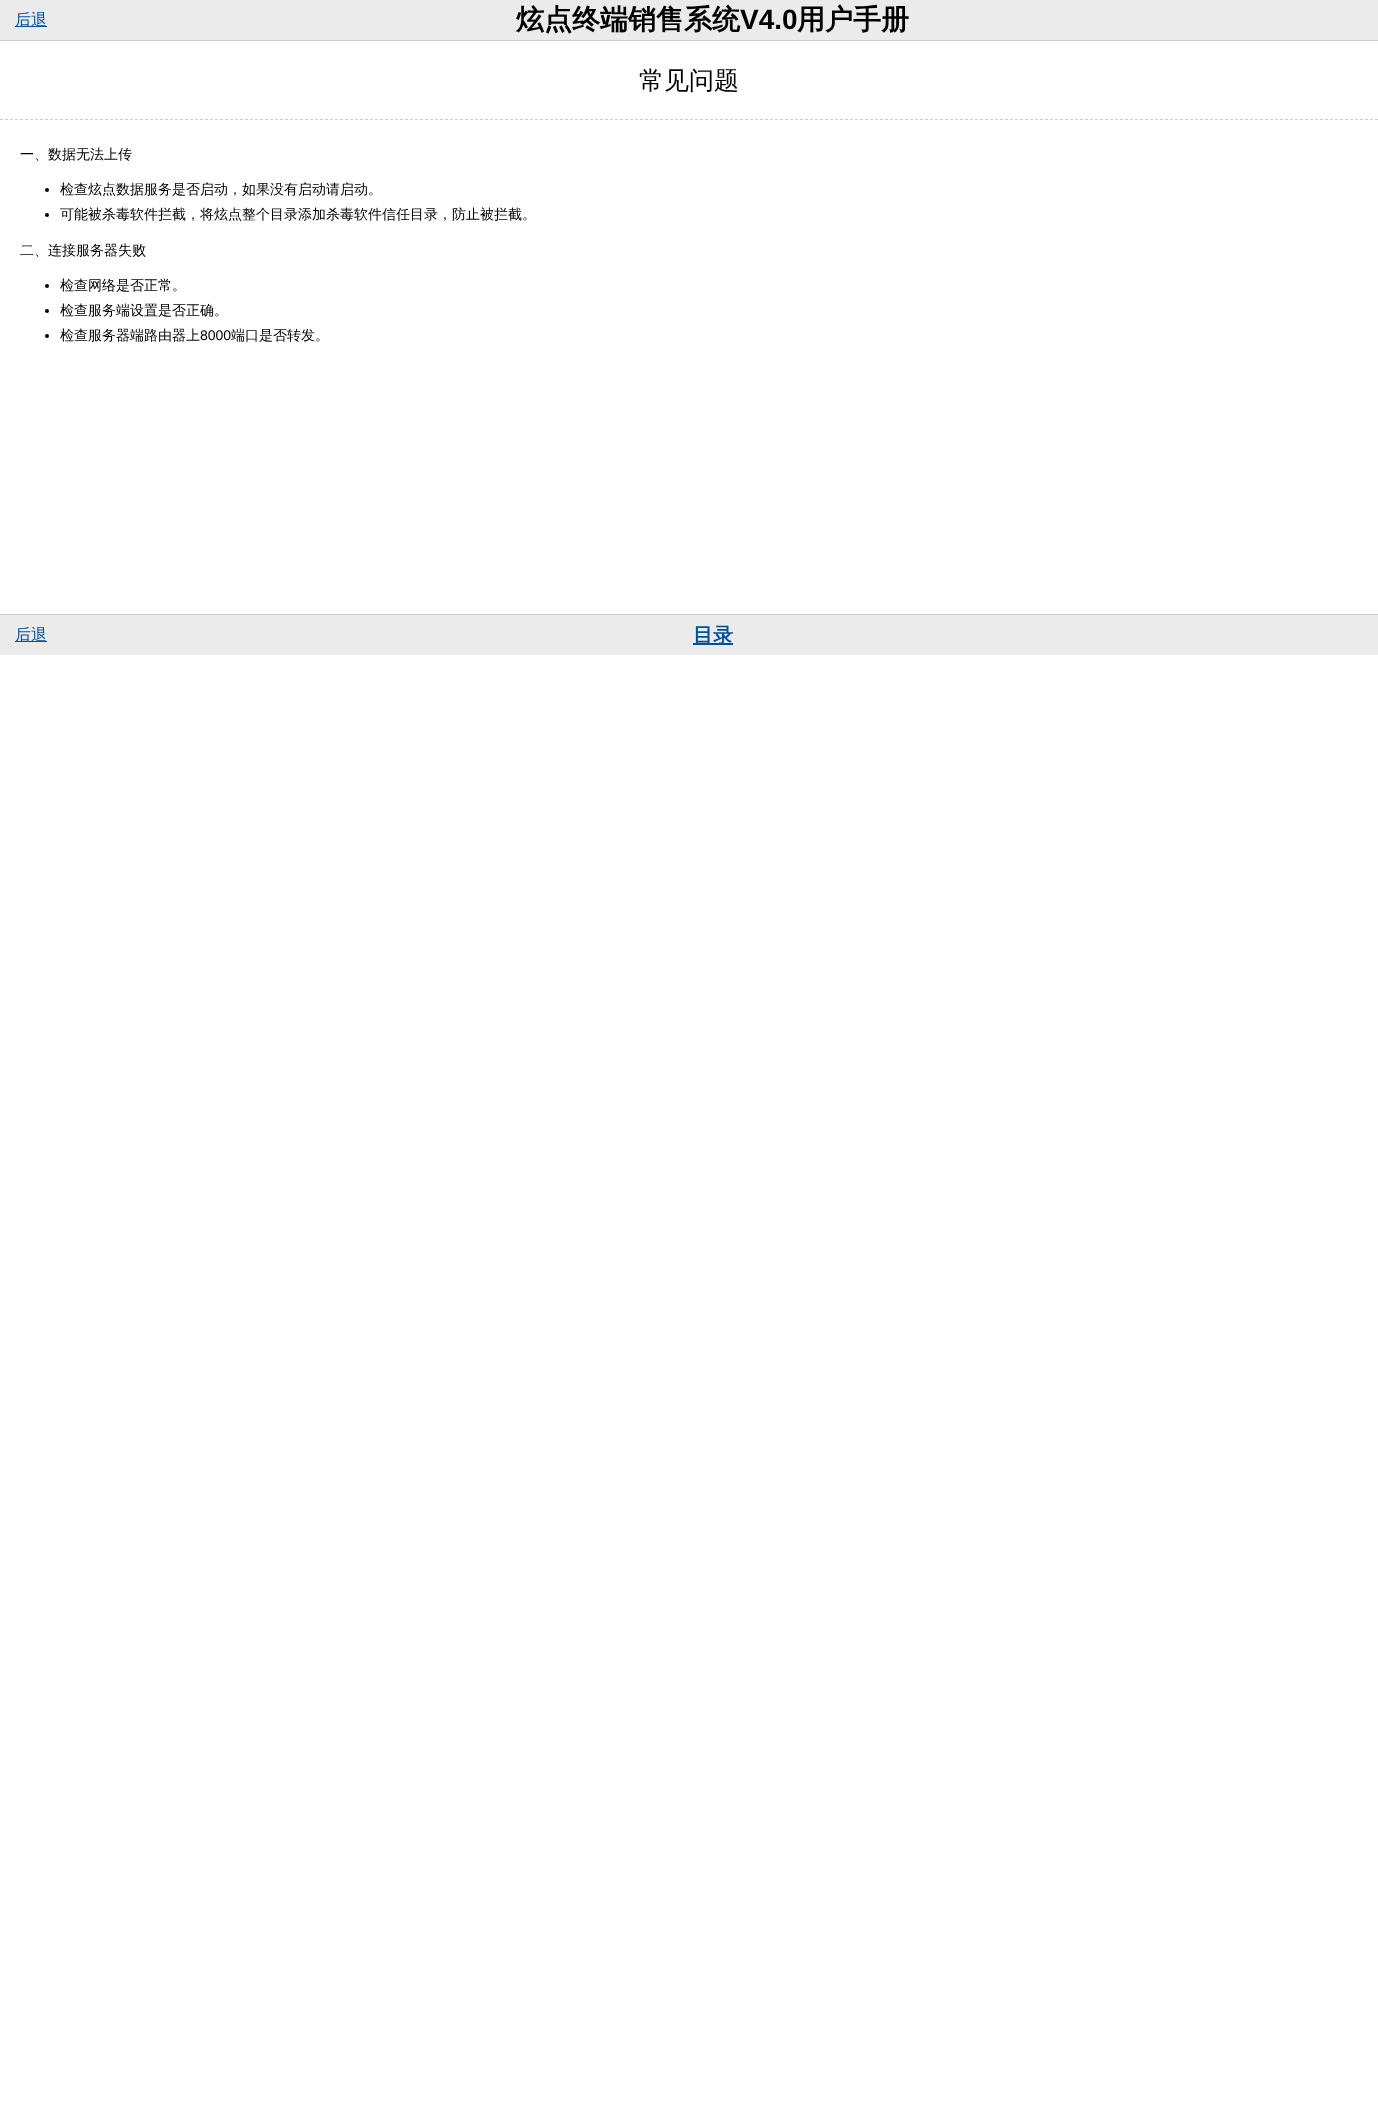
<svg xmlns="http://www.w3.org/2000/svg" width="1378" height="2105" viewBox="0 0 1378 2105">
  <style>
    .t1 { font: 500 16px WenQuanYi Zen Hei; fill: #005099; }
    .t2 { font: bold 28px WenQuanYi Zen Hei; fill: #000; }
    .t3 { font: bold 28px Liberation Sans; fill: #000; }
    .t4 { font: 500 25px WenQuanYi Zen Hei; fill: #000; }
    .t5 { font: 500 14px WenQuanYi Zen Hei; fill: #000; }
    .t6 { font: 14px Liberation Sans; fill: #000; }
    .t7 { font: bold 20px WenQuanYi Zen Hei; fill: #005099; }
  </style>
  <rect width="100%" height="100%" fill="#fff"/>
  <rect x="0" y="0" width="1378" height="40" fill="#ebebeb"/>
  <rect x="0" y="40" width="1378" height="1" fill="#ccc"/>
  <rect x="15" y="26" width="32" height="1" fill="#005099"/>
  <text x="15" y="25" class="t1">后退</text>
  <text x="516" y="29" class="t2">炫点终端销售系统</text>
  <text x="740" y="29" class="t3">V4.0</text>
  <text x="797" y="29" class="t2">用户手册</text>
  <path d="M0 119.5H1378" fill="none" stroke="#ccc" stroke-dasharray="3 2"/>
  <text x="639" y="89" class="t4">常见问题</text>
  <text x="20" y="159" class="t5">一、数据无法上传</text>
  <circle cx="47" cy="190" r="2" fill="#000"/>
  <text x="60" y="194" class="t5">检查炫点数据服务是否启动，如果没有启动请启动。</text>
  <circle cx="47" cy="215" r="2" fill="#000"/>
  <text x="60" y="219" class="t5">可能被杀毒软件拦截，将炫点整个目录添加杀毒软件信任目录，防止被拦截。</text>
  <text x="20" y="255" class="t5">二、连接服务器失败</text>
  <circle cx="47" cy="286" r="2" fill="#000"/>
  <text x="60" y="290" class="t5">检查网络是否正常。</text>
  <circle cx="47" cy="311" r="2" fill="#000"/>
  <text x="60" y="315" class="t5">检查服务端设置是否正确。</text>
  <circle cx="47" cy="336" r="2" fill="#000"/>
  <text x="60" y="340" class="t5">检查服务器端路由器上</text>
  <text x="200" y="340" class="t6">8000</text>
  <text x="231" y="340" class="t5">端口是否转发。</text>
  <rect x="0" y="615" width="1378" height="40" fill="#ebebeb"/>
  <rect x="0" y="614" width="1378" height="1" fill="#ccc"/>
  <rect x="15" y="641" width="32" height="1" fill="#005099"/>
  <text x="15" y="640" class="t1">后退</text>
  <rect x="693" y="643" width="40" height="2" fill="#005099"/>
  <text x="693" y="642" class="t7">目录</text>
</svg>
